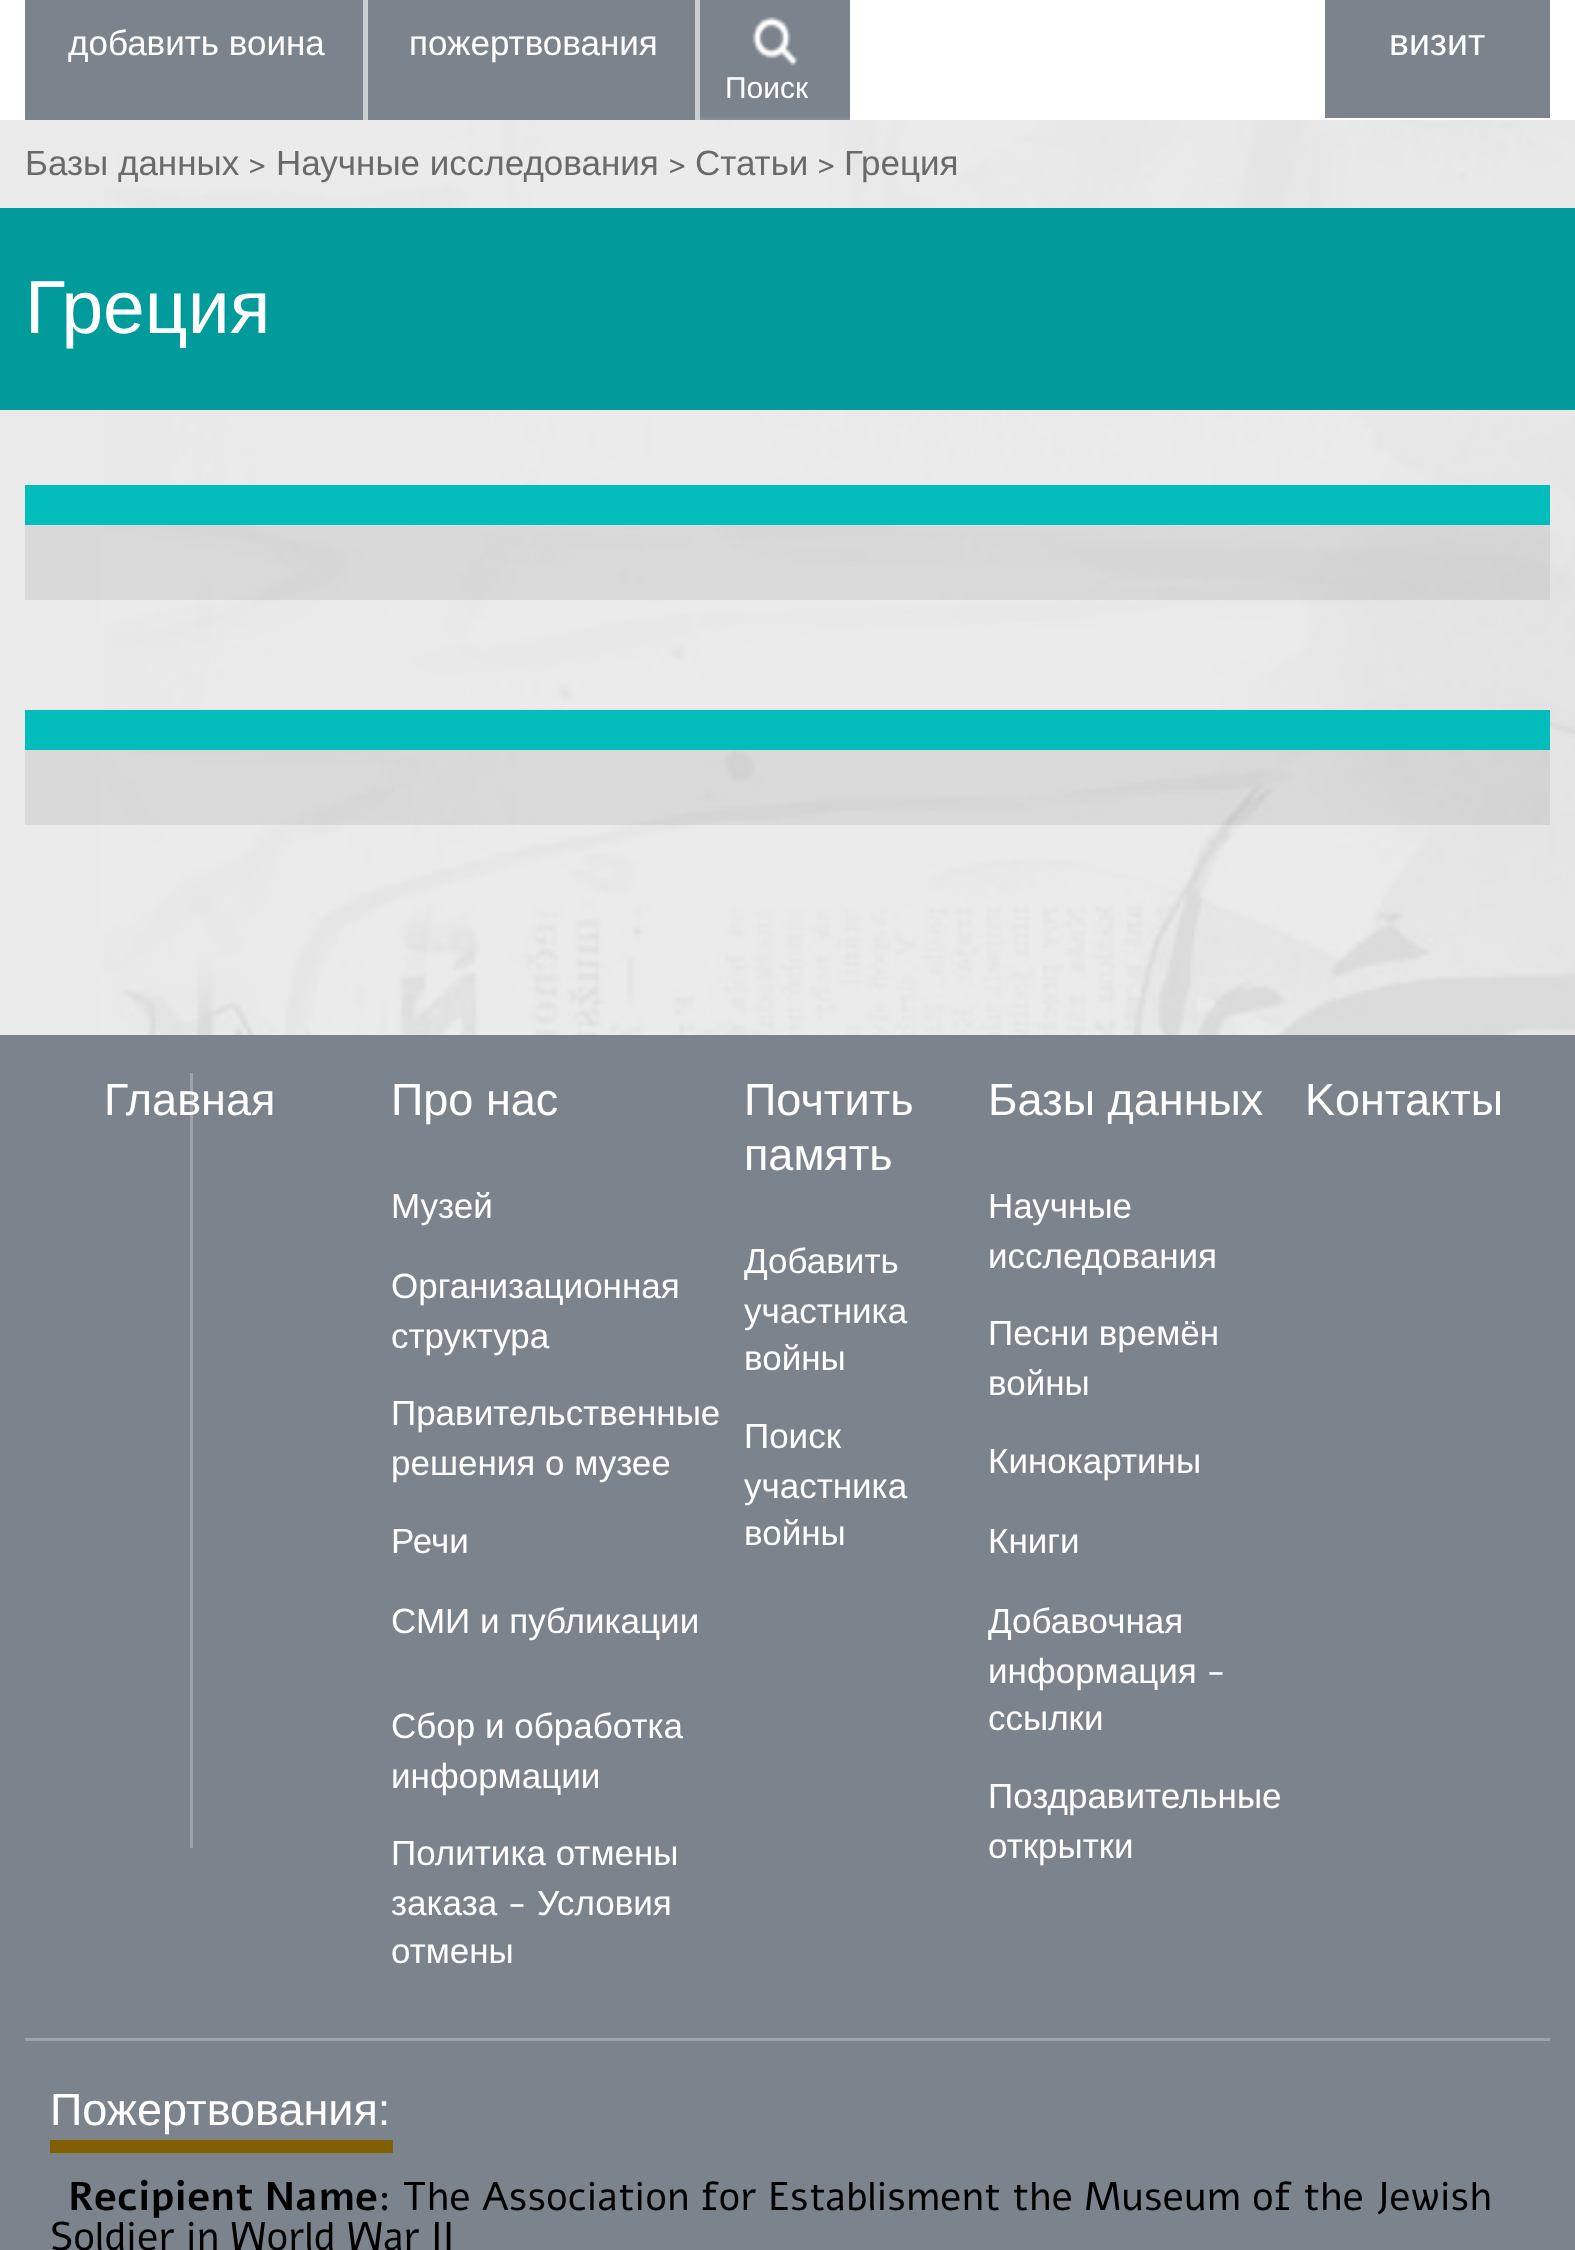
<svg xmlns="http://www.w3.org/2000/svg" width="1575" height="2250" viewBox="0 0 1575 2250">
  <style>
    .t1 { font: 35px Liberation Sans; fill: #fff; }
    .t2 { font: 30px Liberation Sans; fill: #fff; }
    .t3 { font: 37.5px Liberation Sans; fill: #fff; }
    .t4 { font: 35px Liberation Sans; fill: #6a6a6a; }
    .t5 { font: 35px Alef; fill: #6a6a6a; }
    .t6 { font: 75px Liberation Sans; fill: #fff; }
    .t7 { font: 45px Liberation Sans; fill: #fff; }
    .t8 { font: 35px Alef; fill: #fff; }
    .t9 { font: bold 40px Alef; fill: #000; }
    .t10 { font: 40px Alef; fill: #000; }
  </style>
  <rect width="100%" height="100%" fill="#fff"/>
  <image x="0" y="120" width="1575" height="915" href="images/1.png"/>
  <rect x="363" y="0" width="5" height="120" fill="#caced1"/>
  <rect x="25" y="0" width="338" height="120" fill="#7b848d"/>
  <text x="68" y="55" class="t1">добавить воина</text>
  <rect x="695" y="0" width="5" height="120" fill="#caced1"/>
  <rect x="368" y="0" width="327" height="120" fill="#7b848d"/>
  <text x="409" y="55" class="t1">пожертвования</text>
  <image x="700" y="0" width="150" height="120" href="images/2.png"/>
  <text x="725" y="98" class="t2">Поиск</text>
  <rect x="1325" y="0" width="225" height="118" fill="#7b848d"/>
  <text x="1389" y="55" class="t3">визит</text>
  <text x="25" y="175" class="t4">Базы данных</text>
  <text x="249" y="175" class="t5">&gt;</text>
  <text x="276" y="175" class="t4">Научные исследования</text>
  <text x="669" y="175" class="t5">&gt;</text>
  <text x="695" y="175" class="t4">Статьи</text>
  <text x="818" y="175" class="t5">&gt;</text>
  <text x="844" y="175" class="t4">Греция</text>
  <rect x="0" y="208" width="1575" height="202" fill="#019b9b"/>
  <text x="25" y="333" class="t6">Греция</text>
  <rect x="25" y="485" width="1525" height="40" fill="#03bdbd"/>
  <rect x="25" y="525" width="1525" height="75" fill="#00000012"/>
  <rect x="25" y="710" width="1525" height="40" fill="#03bdbd"/>
  <rect x="25" y="750" width="1525" height="75" fill="#00000012"/>
  <rect x="0" y="1035" width="1575" height="1215" fill="#7b848d"/>
  <rect x="190" y="1073" width="3" height="775" fill="#9da3a9"/>
  <text x="104" y="1115" class="t7">Главная</text>
  <text x="391" y="1115" class="t7">Про нас</text>
  <text x="391" y="1218" class="t1">Музей</text>
  <text x="391" y="1298" class="t1">Организационная</text>
  <text x="391" y="1348" class="t1">структура</text>
  <text x="391" y="1425" class="t1">Правительственные</text>
  <text x="391" y="1475" class="t1">решения о музее</text>
  <text x="391" y="1553" class="t1">Речи</text>
  <text x="391" y="1633" class="t1">СМИ и публикации</text>
  <text x="391" y="1738" class="t1">Сбор и обработка</text>
  <text x="391" y="1788" class="t1">информации</text>
  <text x="391" y="1865" class="t1">Политика отмены</text>
  <text x="391" y="1915" class="t1">заказа</text>
  <text x="507" y="1915" class="t8">-</text>
  <text x="537" y="1915" class="t1">Условия</text>
  <text x="391" y="1963" class="t1">отмены</text>
  <text x="744" y="1115" class="t7">Почтить</text>
  <text x="744" y="1170" class="t7">память</text>
  <text x="744" y="1273" class="t1">Добавить</text>
  <text x="744" y="1323" class="t1">участника</text>
  <text x="744" y="1370" class="t1">войны</text>
  <text x="744" y="1448" class="t1">Поиск</text>
  <text x="744" y="1498" class="t1">участника</text>
  <text x="744" y="1545" class="t1">войны</text>
  <text x="988" y="1115" class="t7">Базы данных</text>
  <text x="988" y="1218" class="t1">Научные</text>
  <text x="988" y="1268" class="t1">исследования</text>
  <text x="988" y="1345" class="t1">Песни времён</text>
  <text x="988" y="1395" class="t1">войны</text>
  <text x="988" y="1473" class="t1">Кинокартины</text>
  <text x="988" y="1553" class="t1">Книги</text>
  <text x="988" y="1633" class="t1">Добавочная</text>
  <text x="988" y="1683" class="t1">информация</text>
  <text x="1206" y="1683" class="t8">-</text>
  <text x="988" y="1730" class="t1">ссылки</text>
  <text x="988" y="1808" class="t1">Поздравительные</text>
  <text x="988" y="1858" class="t1">открытки</text>
  <text x="1305" y="1115" class="t7">Kонтакты</text>
  <rect x="25" y="2038" width="1525" height="3" fill="#9da3a9"/>
  <rect x="50" y="2140" width="343" height="13" fill="#826000"/>
  <text x="50" y="2125" class="t7">Пожертвования:</text>
  <text x="68" y="2210" class="t9">Recipient Name</text>
  <text x="378" y="2210" class="t10">: The Association for Establisment the Museum of the Jewish</text>
  <text x="50" y="2250" class="t10">Soldier in World War II</text>
</svg>
